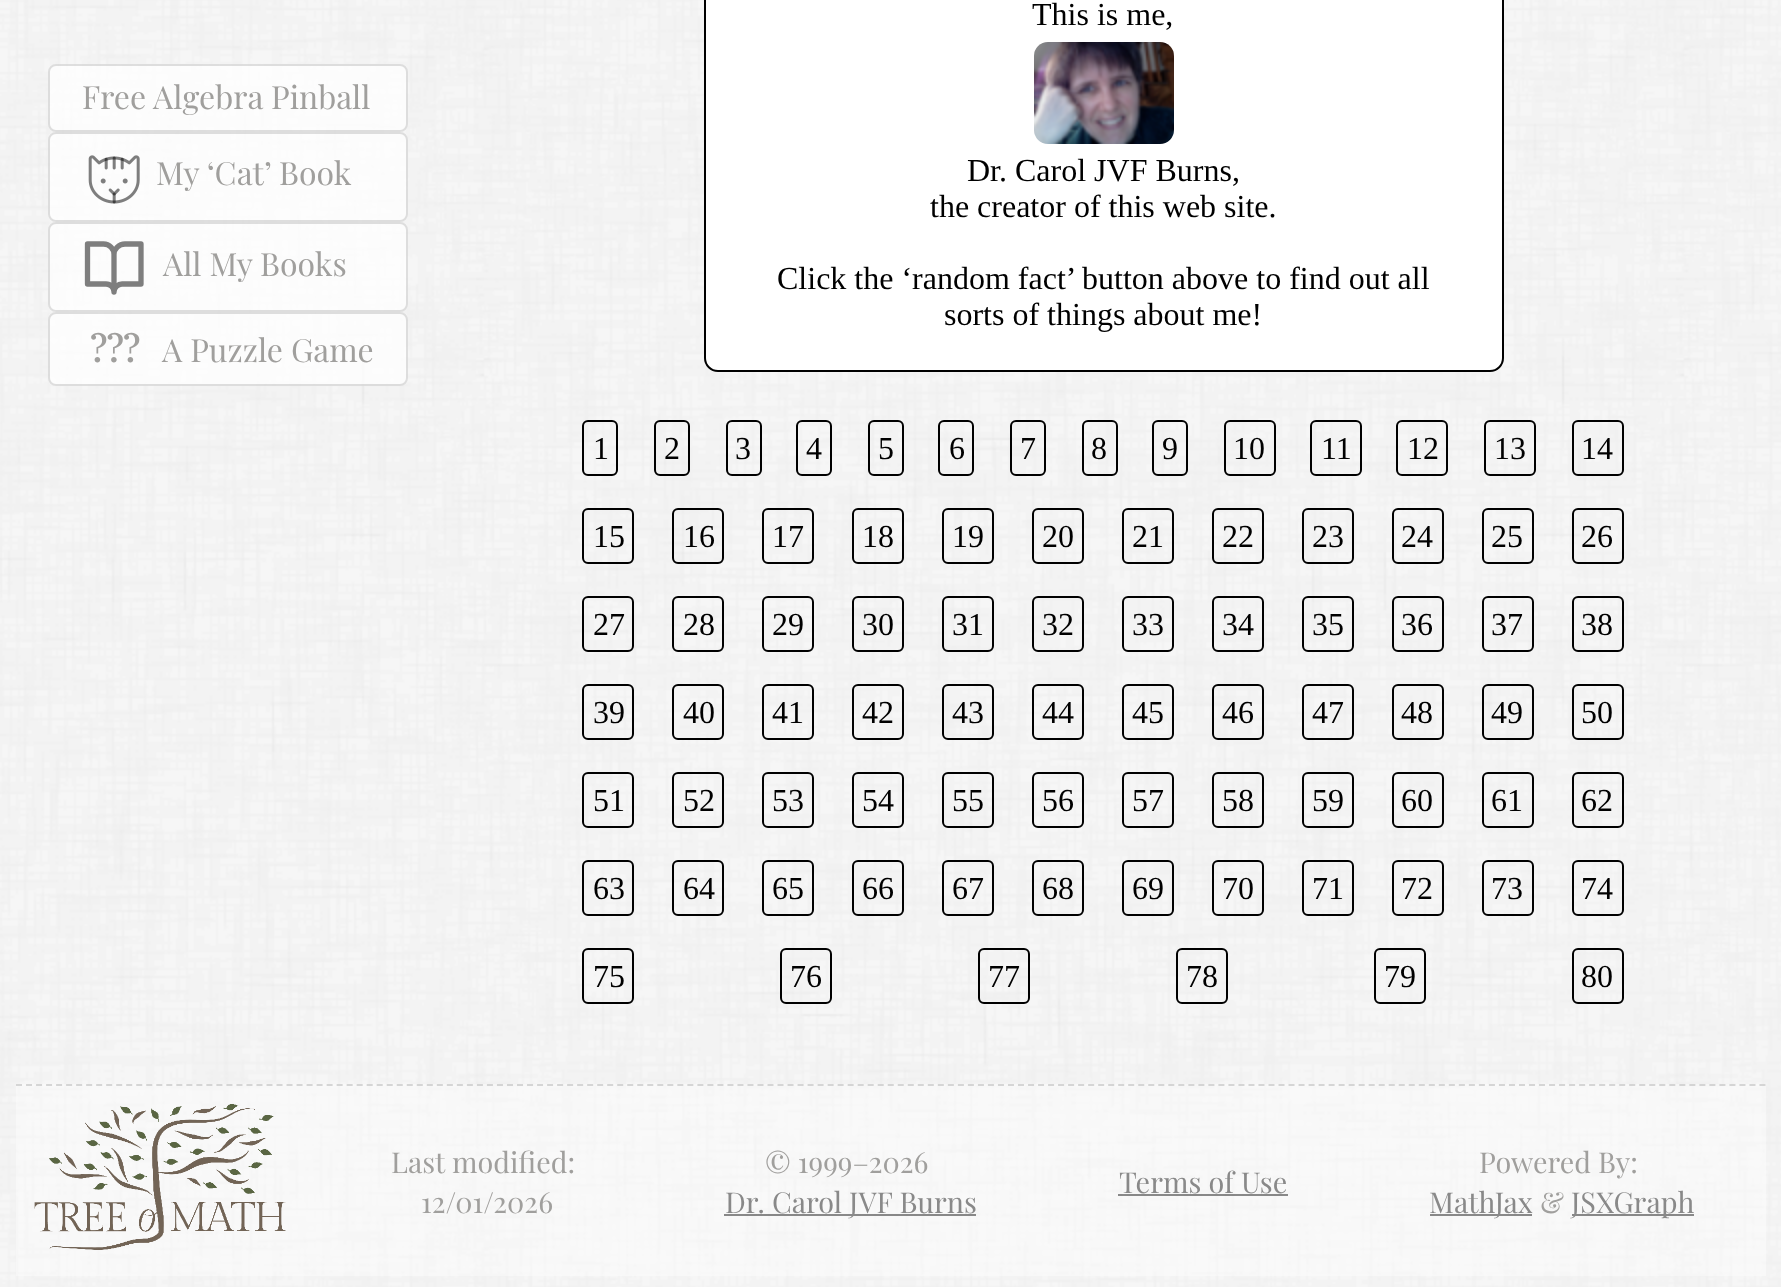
<svg xmlns="http://www.w3.org/2000/svg" width="1781" height="1287" viewBox="0 0 1781 1287">
  <style>
    .t1 { font: 32px Playfair Display; fill: #a09f9d; }
    .t2 { font: bold 36px Playfair Display; fill: #a09f9d; }
    .t3 { font: 32px Liberation Serif; fill: #000; }
    .t4 { font: 28.75px Playfair Display; fill: #a09f9d; }
    .t5 { font: 28.75px Playfair Display; fill: #898989; }
  </style>
  <rect width="100%" height="100%" fill="#fff"/>
  <image x="0" y="0" width="1781" height="1287" href="images/1.png"/>
  <rect x="48" y="64" width="360" height="68" rx="8" fill="#ffffffbf"/>
  <rect x="49" y="65" width="358" height="66" rx="7" fill="none" stroke="#0000001f" stroke-width="2"/>
  <text x="82" y="109" class="t1">Free Algebra Pinball</text>
  <rect x="48" y="132" width="360" height="90" rx="8" fill="#ffffffbf"/>
  <rect x="49" y="133" width="358" height="88" rx="7" fill="none" stroke="#0000001f" stroke-width="2"/>
  <image x="88" y="155" width="52" height="49" href="images/2.png"/>
  <text x="156" y="185" class="t1">My ‘Cat’ Book</text>
  <rect x="48" y="222" width="360" height="90" rx="8" fill="#ffffffbf"/>
  <rect x="49" y="223" width="358" height="88" rx="7" fill="none" stroke="#0000001f" stroke-width="2"/>
  <path d="M87.5 244H103.5C109.5 244 114 249 114 254.5V292C114 287.5 110.5 284 106 284H87.5ZM141 244H125C119 244 114 249 114 254.5V292C114 287.5 118 284 122 284H141Z" fill="none" stroke="#7e7e7e" stroke-width="5.3" stroke-linecap="round" stroke-linejoin="round"/>
  <text x="163" y="276" class="t1">All My Books</text>
  <rect x="48" y="312" width="360" height="74" rx="8" fill="#ffffffbf"/>
  <rect x="49" y="313" width="358" height="72" rx="7" fill="none" stroke="#0000001f" stroke-width="2"/>
  <text x="90" y="362" class="t2">???</text>
  <text x="162" y="362" class="t1">A Puzzle Game</text>
  <rect x="705" y="-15" width="798" height="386" rx="13" fill="#fff" stroke="#000" stroke-width="2"/>
  <text x="1032" y="25" class="t3">This is me,</text>
  <image x="1034" y="42" width="140" height="102" href="images/3.png"/>
  <text x="967" y="181" class="t3">Dr. Carol JVF Burns,</text>
  <text x="930" y="217" class="t3">the creator of this web site.</text>
  <text x="777" y="289" class="t3">Click the ‘random fact’ button above to find out all</text>
  <text x="944" y="325" class="t3">sorts of things about me!</text>
  <rect x="583" y="421" width="34" height="54" rx="5" fill="none" stroke="#000" stroke-width="2"/>
  <text x="593" y="459" class="t3">1</text>
  <rect x="655" y="421" width="34" height="54" rx="5" fill="none" stroke="#000" stroke-width="2"/>
  <text x="664" y="459" class="t3">2</text>
  <rect x="727" y="421" width="34" height="54" rx="5" fill="none" stroke="#000" stroke-width="2"/>
  <text x="735" y="459" class="t3">3</text>
  <rect x="797" y="421" width="34" height="54" rx="5" fill="none" stroke="#000" stroke-width="2"/>
  <text x="806" y="459" class="t3">4</text>
  <rect x="869" y="421" width="34" height="54" rx="5" fill="none" stroke="#000" stroke-width="2"/>
  <text x="878" y="459" class="t3">5</text>
  <rect x="939" y="421" width="34" height="54" rx="5" fill="none" stroke="#000" stroke-width="2"/>
  <text x="949" y="459" class="t3">6</text>
  <rect x="1011" y="421" width="34" height="54" rx="5" fill="none" stroke="#000" stroke-width="2"/>
  <text x="1020" y="459" class="t3">7</text>
  <rect x="1083" y="421" width="34" height="54" rx="5" fill="none" stroke="#000" stroke-width="2"/>
  <text x="1091" y="459" class="t3">8</text>
  <rect x="1153" y="421" width="34" height="54" rx="5" fill="none" stroke="#000" stroke-width="2"/>
  <text x="1162" y="459" class="t3">9</text>
  <rect x="1225" y="421" width="50" height="54" rx="5" fill="none" stroke="#000" stroke-width="2"/>
  <text x="1233" y="459" class="t3">10</text>
  <rect x="1311" y="421" width="50" height="54" rx="5" fill="none" stroke="#000" stroke-width="2"/>
  <text x="1321" y="459" class="t3">11</text>
  <rect x="1397" y="421" width="50" height="54" rx="5" fill="none" stroke="#000" stroke-width="2"/>
  <text x="1407" y="459" class="t3">12</text>
  <rect x="1485" y="421" width="50" height="54" rx="5" fill="none" stroke="#000" stroke-width="2"/>
  <text x="1494" y="459" class="t3">13</text>
  <rect x="1573" y="421" width="50" height="54" rx="5" fill="none" stroke="#000" stroke-width="2"/>
  <text x="1581" y="459" class="t3">14</text>
  <rect x="583" y="509" width="50" height="54" rx="5" fill="none" stroke="#000" stroke-width="2"/>
  <text x="593" y="547" class="t3">15</text>
  <rect x="673" y="509" width="50" height="54" rx="5" fill="none" stroke="#000" stroke-width="2"/>
  <text x="683" y="547" class="t3">16</text>
  <rect x="763" y="509" width="50" height="54" rx="5" fill="none" stroke="#000" stroke-width="2"/>
  <text x="772" y="547" class="t3">17</text>
  <rect x="853" y="509" width="50" height="54" rx="5" fill="none" stroke="#000" stroke-width="2"/>
  <text x="862" y="547" class="t3">18</text>
  <rect x="943" y="509" width="50" height="54" rx="5" fill="none" stroke="#000" stroke-width="2"/>
  <text x="952" y="547" class="t3">19</text>
  <rect x="1033" y="509" width="50" height="54" rx="5" fill="none" stroke="#000" stroke-width="2"/>
  <text x="1042" y="547" class="t3">20</text>
  <rect x="1123" y="509" width="50" height="54" rx="5" fill="none" stroke="#000" stroke-width="2"/>
  <text x="1132" y="547" class="t3">21</text>
  <rect x="1213" y="509" width="50" height="54" rx="5" fill="none" stroke="#000" stroke-width="2"/>
  <text x="1222" y="547" class="t3">22</text>
  <rect x="1303" y="509" width="50" height="54" rx="5" fill="none" stroke="#000" stroke-width="2"/>
  <text x="1312" y="547" class="t3">23</text>
  <rect x="1393" y="509" width="50" height="54" rx="5" fill="none" stroke="#000" stroke-width="2"/>
  <text x="1401" y="547" class="t3">24</text>
  <rect x="1483" y="509" width="50" height="54" rx="5" fill="none" stroke="#000" stroke-width="2"/>
  <text x="1491" y="547" class="t3">25</text>
  <rect x="1573" y="509" width="50" height="54" rx="5" fill="none" stroke="#000" stroke-width="2"/>
  <text x="1581" y="547" class="t3">26</text>
  <rect x="583" y="597" width="50" height="54" rx="5" fill="none" stroke="#000" stroke-width="2"/>
  <text x="593" y="635" class="t3">27</text>
  <rect x="673" y="597" width="50" height="54" rx="5" fill="none" stroke="#000" stroke-width="2"/>
  <text x="683" y="635" class="t3">28</text>
  <rect x="763" y="597" width="50" height="54" rx="5" fill="none" stroke="#000" stroke-width="2"/>
  <text x="772" y="635" class="t3">29</text>
  <rect x="853" y="597" width="50" height="54" rx="5" fill="none" stroke="#000" stroke-width="2"/>
  <text x="862" y="635" class="t3">30</text>
  <rect x="943" y="597" width="50" height="54" rx="5" fill="none" stroke="#000" stroke-width="2"/>
  <text x="952" y="635" class="t3">31</text>
  <rect x="1033" y="597" width="50" height="54" rx="5" fill="none" stroke="#000" stroke-width="2"/>
  <text x="1042" y="635" class="t3">32</text>
  <rect x="1123" y="597" width="50" height="54" rx="5" fill="none" stroke="#000" stroke-width="2"/>
  <text x="1132" y="635" class="t3">33</text>
  <rect x="1213" y="597" width="50" height="54" rx="5" fill="none" stroke="#000" stroke-width="2"/>
  <text x="1222" y="635" class="t3">34</text>
  <rect x="1303" y="597" width="50" height="54" rx="5" fill="none" stroke="#000" stroke-width="2"/>
  <text x="1312" y="635" class="t3">35</text>
  <rect x="1393" y="597" width="50" height="54" rx="5" fill="none" stroke="#000" stroke-width="2"/>
  <text x="1401" y="635" class="t3">36</text>
  <rect x="1483" y="597" width="50" height="54" rx="5" fill="none" stroke="#000" stroke-width="2"/>
  <text x="1491" y="635" class="t3">37</text>
  <rect x="1573" y="597" width="50" height="54" rx="5" fill="none" stroke="#000" stroke-width="2"/>
  <text x="1581" y="635" class="t3">38</text>
  <rect x="583" y="685" width="50" height="54" rx="5" fill="none" stroke="#000" stroke-width="2"/>
  <text x="593" y="723" class="t3">39</text>
  <rect x="673" y="685" width="50" height="54" rx="5" fill="none" stroke="#000" stroke-width="2"/>
  <text x="683" y="723" class="t3">40</text>
  <rect x="763" y="685" width="50" height="54" rx="5" fill="none" stroke="#000" stroke-width="2"/>
  <text x="772" y="723" class="t3">41</text>
  <rect x="853" y="685" width="50" height="54" rx="5" fill="none" stroke="#000" stroke-width="2"/>
  <text x="862" y="723" class="t3">42</text>
  <rect x="943" y="685" width="50" height="54" rx="5" fill="none" stroke="#000" stroke-width="2"/>
  <text x="952" y="723" class="t3">43</text>
  <rect x="1033" y="685" width="50" height="54" rx="5" fill="none" stroke="#000" stroke-width="2"/>
  <text x="1042" y="723" class="t3">44</text>
  <rect x="1123" y="685" width="50" height="54" rx="5" fill="none" stroke="#000" stroke-width="2"/>
  <text x="1132" y="723" class="t3">45</text>
  <rect x="1213" y="685" width="50" height="54" rx="5" fill="none" stroke="#000" stroke-width="2"/>
  <text x="1222" y="723" class="t3">46</text>
  <rect x="1303" y="685" width="50" height="54" rx="5" fill="none" stroke="#000" stroke-width="2"/>
  <text x="1312" y="723" class="t3">47</text>
  <rect x="1393" y="685" width="50" height="54" rx="5" fill="none" stroke="#000" stroke-width="2"/>
  <text x="1401" y="723" class="t3">48</text>
  <rect x="1483" y="685" width="50" height="54" rx="5" fill="none" stroke="#000" stroke-width="2"/>
  <text x="1491" y="723" class="t3">49</text>
  <rect x="1573" y="685" width="50" height="54" rx="5" fill="none" stroke="#000" stroke-width="2"/>
  <text x="1581" y="723" class="t3">50</text>
  <rect x="583" y="773" width="50" height="54" rx="5" fill="none" stroke="#000" stroke-width="2"/>
  <text x="593" y="811" class="t3">51</text>
  <rect x="673" y="773" width="50" height="54" rx="5" fill="none" stroke="#000" stroke-width="2"/>
  <text x="683" y="811" class="t3">52</text>
  <rect x="763" y="773" width="50" height="54" rx="5" fill="none" stroke="#000" stroke-width="2"/>
  <text x="772" y="811" class="t3">53</text>
  <rect x="853" y="773" width="50" height="54" rx="5" fill="none" stroke="#000" stroke-width="2"/>
  <text x="862" y="811" class="t3">54</text>
  <rect x="943" y="773" width="50" height="54" rx="5" fill="none" stroke="#000" stroke-width="2"/>
  <text x="952" y="811" class="t3">55</text>
  <rect x="1033" y="773" width="50" height="54" rx="5" fill="none" stroke="#000" stroke-width="2"/>
  <text x="1042" y="811" class="t3">56</text>
  <rect x="1123" y="773" width="50" height="54" rx="5" fill="none" stroke="#000" stroke-width="2"/>
  <text x="1132" y="811" class="t3">57</text>
  <rect x="1213" y="773" width="50" height="54" rx="5" fill="none" stroke="#000" stroke-width="2"/>
  <text x="1222" y="811" class="t3">58</text>
  <rect x="1303" y="773" width="50" height="54" rx="5" fill="none" stroke="#000" stroke-width="2"/>
  <text x="1312" y="811" class="t3">59</text>
  <rect x="1393" y="773" width="50" height="54" rx="5" fill="none" stroke="#000" stroke-width="2"/>
  <text x="1401" y="811" class="t3">60</text>
  <rect x="1483" y="773" width="50" height="54" rx="5" fill="none" stroke="#000" stroke-width="2"/>
  <text x="1491" y="811" class="t3">61</text>
  <rect x="1573" y="773" width="50" height="54" rx="5" fill="none" stroke="#000" stroke-width="2"/>
  <text x="1581" y="811" class="t3">62</text>
  <rect x="583" y="861" width="50" height="54" rx="5" fill="none" stroke="#000" stroke-width="2"/>
  <text x="593" y="899" class="t3">63</text>
  <rect x="673" y="861" width="50" height="54" rx="5" fill="none" stroke="#000" stroke-width="2"/>
  <text x="683" y="899" class="t3">64</text>
  <rect x="763" y="861" width="50" height="54" rx="5" fill="none" stroke="#000" stroke-width="2"/>
  <text x="772" y="899" class="t3">65</text>
  <rect x="853" y="861" width="50" height="54" rx="5" fill="none" stroke="#000" stroke-width="2"/>
  <text x="862" y="899" class="t3">66</text>
  <rect x="943" y="861" width="50" height="54" rx="5" fill="none" stroke="#000" stroke-width="2"/>
  <text x="952" y="899" class="t3">67</text>
  <rect x="1033" y="861" width="50" height="54" rx="5" fill="none" stroke="#000" stroke-width="2"/>
  <text x="1042" y="899" class="t3">68</text>
  <rect x="1123" y="861" width="50" height="54" rx="5" fill="none" stroke="#000" stroke-width="2"/>
  <text x="1132" y="899" class="t3">69</text>
  <rect x="1213" y="861" width="50" height="54" rx="5" fill="none" stroke="#000" stroke-width="2"/>
  <text x="1222" y="899" class="t3">70</text>
  <rect x="1303" y="861" width="50" height="54" rx="5" fill="none" stroke="#000" stroke-width="2"/>
  <text x="1312" y="899" class="t3">71</text>
  <rect x="1393" y="861" width="50" height="54" rx="5" fill="none" stroke="#000" stroke-width="2"/>
  <text x="1401" y="899" class="t3">72</text>
  <rect x="1483" y="861" width="50" height="54" rx="5" fill="none" stroke="#000" stroke-width="2"/>
  <text x="1491" y="899" class="t3">73</text>
  <rect x="1573" y="861" width="50" height="54" rx="5" fill="none" stroke="#000" stroke-width="2"/>
  <text x="1581" y="899" class="t3">74</text>
  <rect x="583" y="949" width="50" height="54" rx="5" fill="none" stroke="#000" stroke-width="2"/>
  <text x="593" y="987" class="t3">75</text>
  <rect x="781" y="949" width="50" height="54" rx="5" fill="none" stroke="#000" stroke-width="2"/>
  <text x="790" y="987" class="t3">76</text>
  <rect x="979" y="949" width="50" height="54" rx="5" fill="none" stroke="#000" stroke-width="2"/>
  <text x="988" y="987" class="t3">77</text>
  <rect x="1177" y="949" width="50" height="54" rx="5" fill="none" stroke="#000" stroke-width="2"/>
  <text x="1186" y="987" class="t3">78</text>
  <rect x="1375" y="949" width="50" height="54" rx="5" fill="none" stroke="#000" stroke-width="2"/>
  <text x="1384" y="987" class="t3">79</text>
  <rect x="1573" y="949" width="50" height="54" rx="5" fill="none" stroke="#000" stroke-width="2"/>
  <text x="1581" y="987" class="t3">80</text>
  <rect x="16" y="1084" width="1750" height="192" fill="#ffffff66"/>
  <path d="M16 1085H1766" fill="none" stroke="#cccccccc" stroke-width="2" stroke-dasharray="6 4.02"/>
  <image x="34" y="1104" width="252" height="146" href="images/4.png"/>
  <text x="391" y="1173" class="t4">Last modified:</text>
  <text x="421" y="1213" class="t4">12/01/2026</text>
  <text x="765" y="1173" class="t4">© 1999–2026</text>
  <rect x="724" y="1214" width="252" height="2" fill="#00000073"/>
  <text x="725" y="1213" class="t5">Dr. Carol JVF Burns</text>
  <text x="1119" y="1193" class="t5">Terms of Use</text>
  <rect x="1118" y="1194" width="170" height="2" fill="#00000073"/>
  <text x="1479" y="1173" class="t4">Powered By:</text>
  <rect x="1430" y="1214" width="102" height="2" fill="#00000073"/>
  <text x="1429" y="1213" class="t5">MathJax</text>
  <text x="1540" y="1213" class="t4">&amp;</text>
  <rect x="1572" y="1214" width="122" height="2" fill="#00000073"/>
  <text x="1571" y="1213" class="t5">JSXGraph</text>
</svg>
